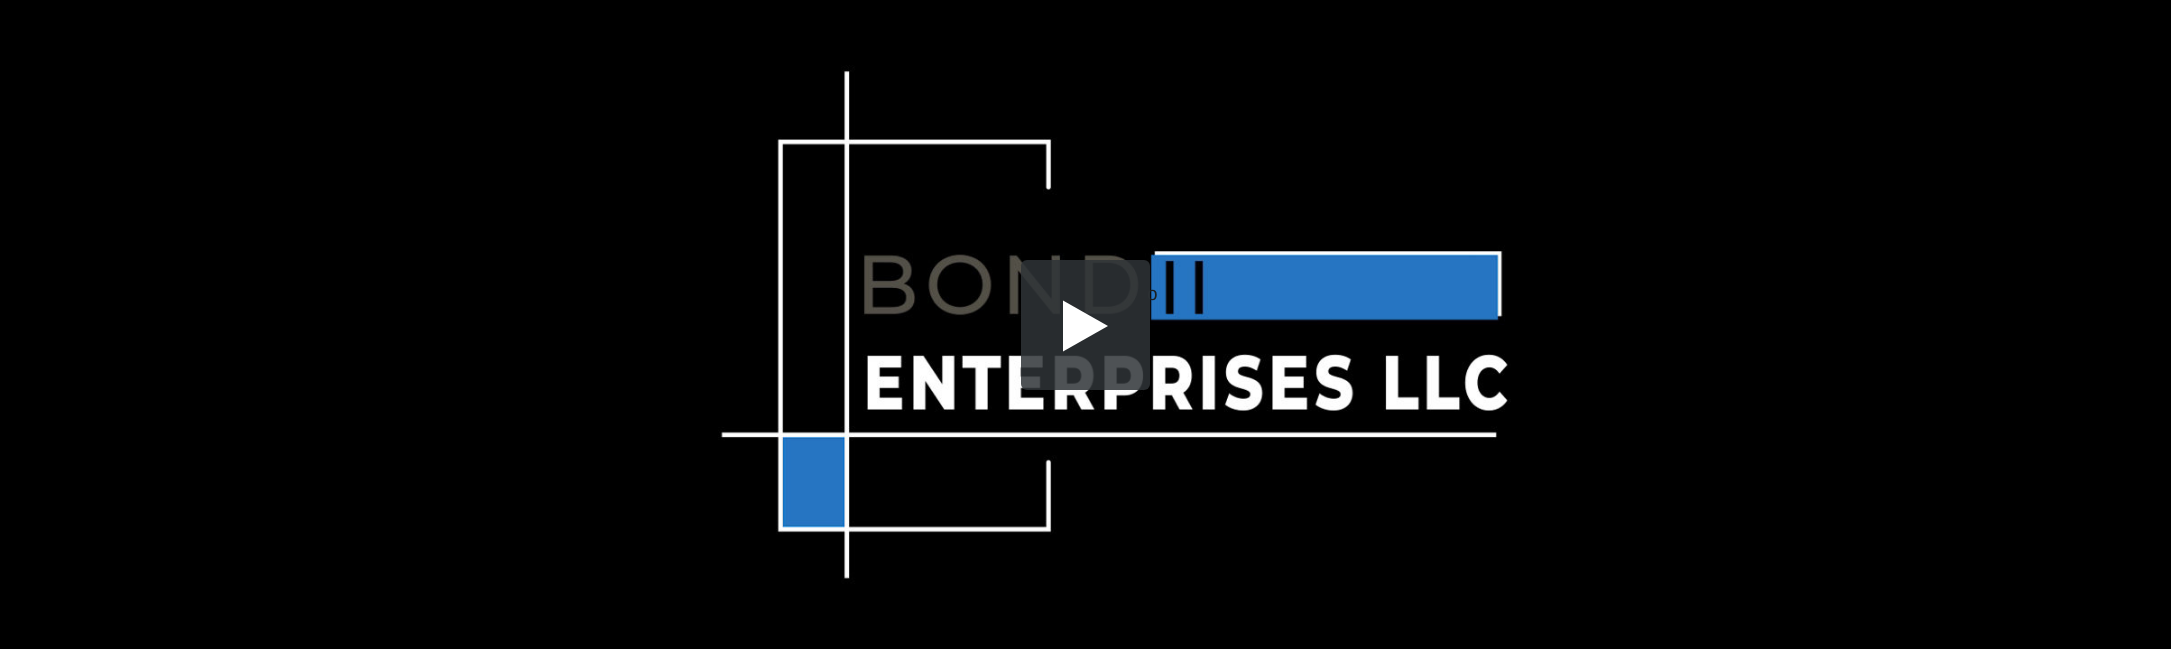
<svg xmlns="http://www.w3.org/2000/svg" width="2171" height="649" viewBox="0 0 2171 649">
  <style>
    .t1 { font: 19px Liberation Sans; fill: #1b1e1e; }
  </style>
  <defs>
    <clipPath id="clip1"><rect x="1063" y="300" width="46" height="53"/></clipPath>
  </defs>
  <rect width="100%" height="100%" fill="#000"/>
  <image x="718" y="65" width="793" height="519" href="images/1.png"/>
  <text x="1147" y="300" class="t1">o</text>
  <rect x="1021" y="260" width="129" height="130" rx="6" fill="#2f3437d9"/>
  <g clip-path="url(#clip1)">
    <path d="M1062 300V352L1108 326Z" fill="#fff"/>
  </g>
</svg>
